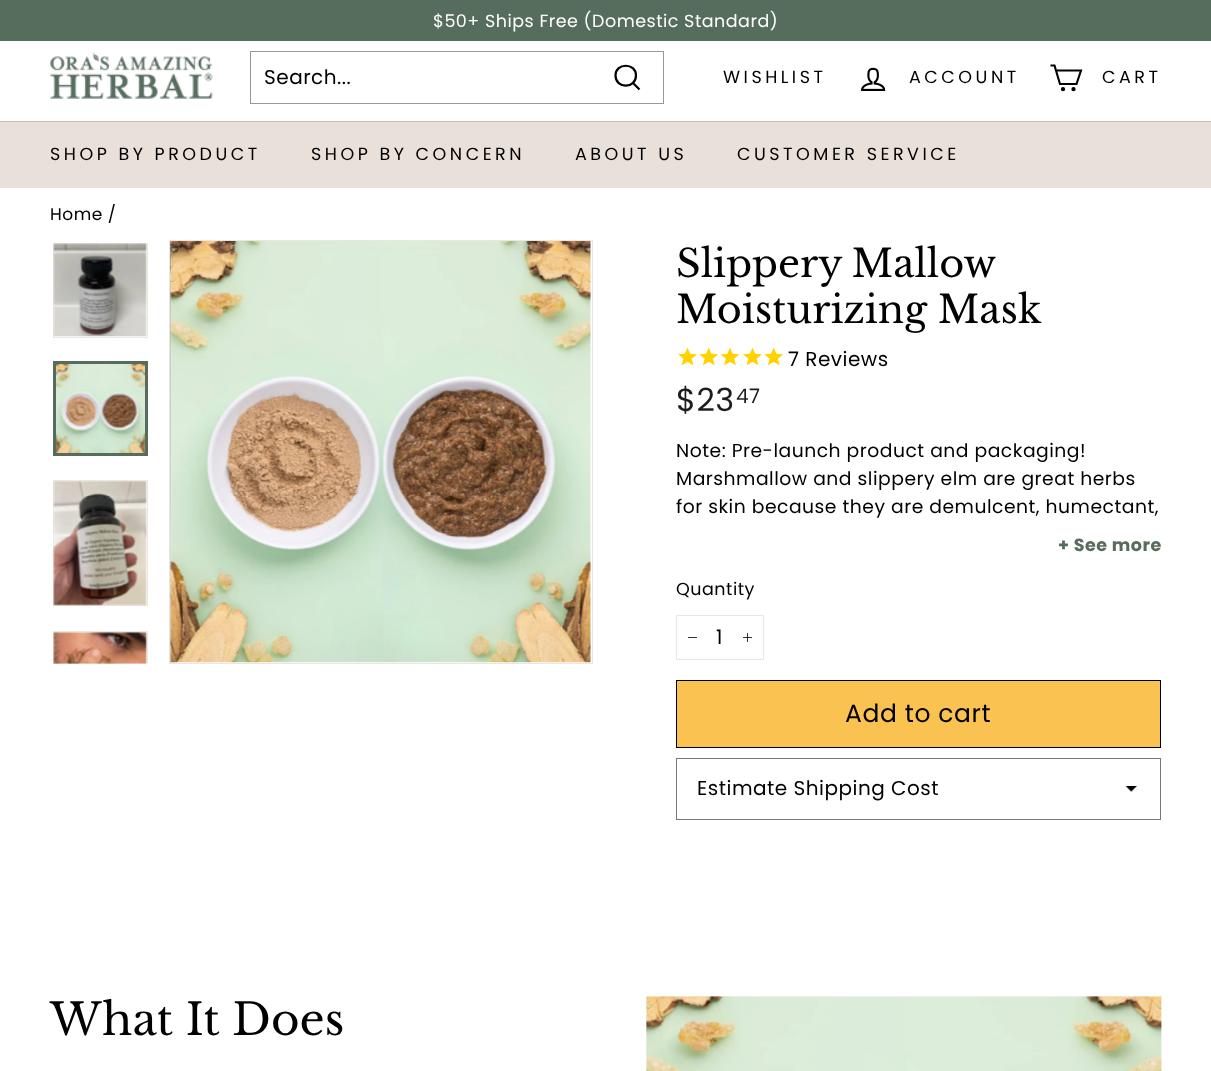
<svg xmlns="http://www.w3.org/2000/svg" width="1211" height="1071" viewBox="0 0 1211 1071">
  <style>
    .t1 { font: 17.5px Poppins; letter-spacing: 0.5px; fill: #fff; }
    .t2 { font: 20px Poppins; letter-spacing: 0.5px; fill: #000; }
    .t3 { font: 17.5px Poppins; letter-spacing: 3.5px; fill: #000; }
    .t4 { font: 17px Poppins; letter-spacing: 0.5px; fill: #000; }
    .t5 { font: 38.25px Libre Baskerville; fill: #000; }
    .t6 { font: 32px Poppins; letter-spacing: 0.5px; fill: #1c1d1d; }
    .t7 { font: 20px Poppins; letter-spacing: 0.5px; fill: #1c1d1d; }
    .t8 { font: 18.75px Poppins; letter-spacing: 0.5px; fill: #000; }
    .t9 { font: bold 17.5px Poppins; letter-spacing: 0.5px; fill: #586c5d; }
    .t10 { font: 17.5px Poppins; letter-spacing: 0.5px; fill: #000; }
    .t11 { font: 25px Poppins; letter-spacing: 0.6px; fill: #000; }
    .t12 { font: 43.75px Libre Baskerville; fill: #000; }
  </style>
  <defs>
    <clipPath id="clip1"><rect x="53" y="631" width="95" height="33"/></clipPath>
  </defs>
  <rect width="100%" height="100%" fill="#fff"/>
  <rect x="0" y="0" width="1211" height="41" fill="#566d5d"/>
  <text x="433" y="27" class="t1">$50+ Ships Free (Domestic Standard)</text>
  <image x="50" y="52" width="163" height="47" href="images/1.png"/>
  <rect x="250.5" y="51.5" width="413" height="52" fill="none" stroke="#989898"/>
  <text x="264" y="84" class="t2">Search...</text>
  <path d="M636 75.5C636 89 615.5 89 615.5 75.5C615.5 62.5 636 62.5 636 75.5ZM639.5 89.5L633 83" fill="none" stroke="#000" stroke-width="2.2"/>
  <text x="723" y="83" class="t3">WISHLIST</text>
  <image x="861" y="67" width="25" height="24" href="images/2.png"/>
  <text x="909" y="83" class="t3">ACCOUNT</text>
  <path d="M1056 70.5H1081L1076.5 84H1060L1054.5 65.5H1050.5" fill="none" stroke="#000" stroke-width="2.1"/>
  <circle cx="1063" cy="89.2" r="1.1" fill="none" stroke="#000" stroke-width="2.1"/>
  <circle cx="1073.5" cy="89.2" r="1.1" fill="none" stroke="#000" stroke-width="2.1"/>
  <text x="1102" y="83" class="t3">CART</text>
  <rect x="0" y="122" width="1211" height="66" fill="#eae0da"/>
  <rect x="0" y="121" width="1211" height="1" fill="#c7beb9"/>
  <text x="50" y="160" class="t3">SHOP BY PRODUCT</text>
  <text x="311" y="160" class="t3">SHOP BY CONCERN</text>
  <text x="575" y="160" class="t3">ABOUT US</text>
  <text x="737" y="160" class="t3">CUSTOMER SERVICE</text>
  <text x="50" y="220" class="t4">Home /</text>
  <rect x="53.5" y="243.5" width="94" height="94" fill="none" stroke="#e8e8e1"/>
  <image x="53" y="243" width="94" height="94" href="images/3.png"/>
  <image x="56" y="364" width="89" height="89" href="images/4.png"/>
  <rect x="54.5" y="362.5" width="92" height="92" fill="none" stroke="#566d5d" stroke-width="3"/>
  <rect x="53.5" y="480.5" width="94" height="125" fill="none" stroke="#e8e8e1"/>
  <image x="53" y="481" width="94" height="125" href="images/5.png"/>
  <g clip-path="url(#clip1)">
    <rect x="53.5" y="631.5" width="94" height="94" fill="none" stroke="#e8e8e1"/>
  </g>
  <image x="53" y="632" width="94" height="32" href="images/6.png"/>
  <rect x="169.5" y="240.5" width="423" height="423" fill="none" stroke="#e8e8e1"/>
  <image x="170" y="241" width="1" height="422" href="images/7.png"/>
  <image x="170" y="241" width="421" height="422" href="images/8.png"/>
  <text x="676" y="277" word-spacing="-1" class="t5">Slippery Mallow</text>
  <text x="676" y="323" class="t5">Moisturizing Mask</text>
  <image x="678" y="347" width="19" height="19" href="images/9.png"/>
  <image x="699" y="347" width="19" height="19" href="images/10.png"/>
  <image x="720" y="347" width="20" height="19" href="images/11.png"/>
  <image x="743" y="347" width="19" height="19" href="images/9.png"/>
  <image x="764" y="347" width="19" height="19" href="images/10.png"/>
  <text x="788" y="366" class="t2">7 Reviews</text>
  <text x="676" y="411" class="t6">$23</text>
  <text x="736" y="403" class="t7">47</text>
  <text x="676" y="457" class="t8">Note: Pre-launch product and packaging!</text>
  <text x="676" y="485" class="t8">Marshmallow and slippery elm are great herbs</text>
  <text x="676" y="513" class="t8">for skin because they are demulcent, humectant,</text>
  <text x="1058" y="551" class="t9">+ See more</text>
  <text x="676" y="595" class="t10">Quantity</text>
  <rect x="676.5" y="615.5" width="87" height="44" fill="none" stroke="#e8e8e1"/>
  <rect x="688" y="637" width="9" height="1" fill="#333"/>
  <text x="716" y="644" class="t2">1</text>
  <path d="M747.5 633V642M752 637.5H743" fill="none" stroke="#000" stroke-width="0.8"/>
  <rect x="676.5" y="680.5" width="484" height="67" fill="#fac251" stroke="#000"/>
  <text x="845" y="722" class="t11">Add to cart</text>
  <image x="1125" y="786" width="12" height="6" href="images/12.png"/>
  <rect x="676.5" y="758.5" width="484" height="61" fill="none" stroke="#777"/>
  <text x="697" y="795" class="t2">Estimate Shipping Cost</text>
  <text x="50" y="1035" class="t12">What It Does</text>
  <image x="646" y="996" width="516" height="75" href="images/13.png"/>
</svg>
